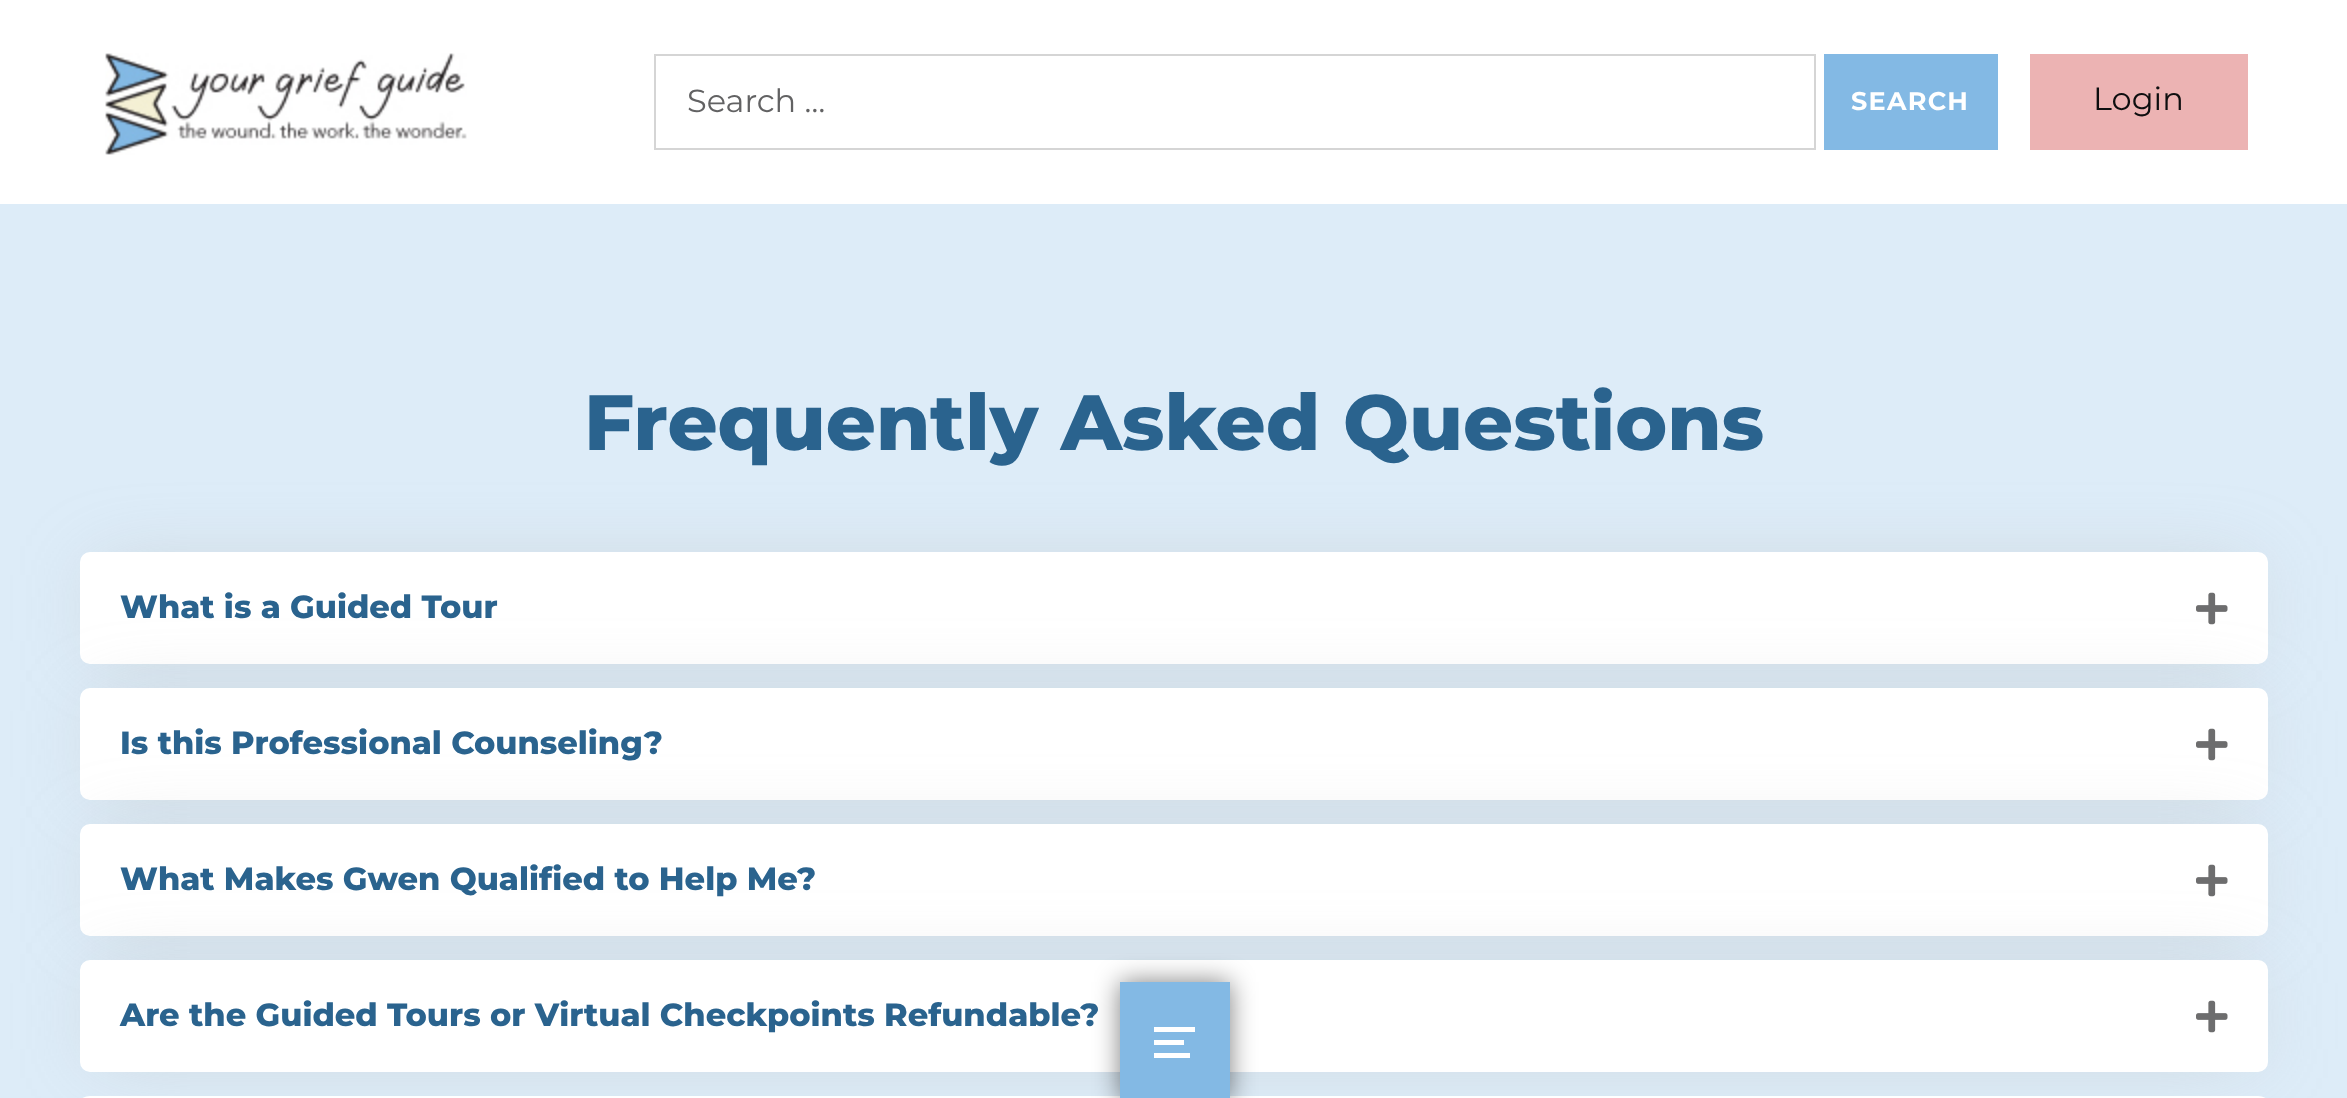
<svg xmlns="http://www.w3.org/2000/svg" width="2347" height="1098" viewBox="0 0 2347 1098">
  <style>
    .t1 { font: 32px Montserrat; fill: #626263; }
    .t2 { font: bold 25.5px Montserrat; letter-spacing: 1.25px; fill: #fff; }
    .t3 { font: 32px Montserrat; fill: #0e0e0f; }
    .t4 { font: 800 78.1px Montserrat; fill: #2a638e; }
    .t5 { font: 800 32px Montserrat; fill: #2a638e; }
  </style>
  <defs>
    <clipPath id="clip1"><rect x="1154" y="1022" width="42" height="42"/></clipPath>
  </defs>
  <rect width="100%" height="100%" fill="#fff"/>
  <image x="105" y="53" width="362" height="102" href="images/1.png"/>
  <rect x="655" y="55" width="1160" height="94" fill="none" stroke="#d5d5d5" stroke-width="2"/>
  <text x="687" y="112" class="t1">Search …</text>
  <rect x="1824" y="54" width="174" height="96" fill="#83b9e4"/>
  <text x="1851" y="110" class="t2">SEARCH</text>
  <rect x="2030" y="54" width="218" height="96" fill="#ecb3b3"/>
  <text x="2093" y="110" class="t3">Login</text>
  <rect x="0" y="204" width="2347" height="894" fill="#ddecf8"/>
  <rect x="100" y="572" width="2148" height="72" fill="#afafaf6b" filter="blur(40px)"/>
  <rect x="80" y="552" width="2188" height="112" rx="10" fill="#fff"/>
  <image x="2196" y="592" width="32" height="33" href="images/2.png"/>
  <rect x="100" y="708" width="2148" height="72" fill="#afafaf6b" filter="blur(40px)"/>
  <rect x="80" y="688" width="2188" height="112" rx="10" fill="#fff"/>
  <image x="2196" y="728" width="32" height="33" href="images/2.png"/>
  <rect x="100" y="844" width="2148" height="72" fill="#afafaf6b" filter="blur(40px)"/>
  <rect x="80" y="824" width="2188" height="112" rx="10" fill="#fff"/>
  <image x="2196" y="864" width="32" height="33" href="images/2.png"/>
  <rect x="100" y="980" width="2148" height="72" fill="#afafaf6b" filter="blur(40px)"/>
  <rect x="80" y="960" width="2188" height="112" rx="10" fill="#fff"/>
  <rect x="80" y="1096" width="2188" height="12" rx="10" fill="#fff"/>
  <rect x="1120" y="982" width="110" height="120" fill="#00000080" filter="blur(13px)"/>
  <rect x="1120" y="982" width="110" height="116" fill="#83b9e4"/>
  <g clip-path="url(#clip1)">
    <path d="M1153 1027V1032H1195V1027ZM1153 1045H1184V1040H1153ZM1153 1058H1190V1053H1153Z" fill="#fff"/>
  </g>
  <text x="584" y="450" class="t4">Frequently Asked Questions</text>
  <text x="120" y="618" class="t5">What is a Guided Tour</text>
  <text x="120" y="754" class="t5">Is this Professional Counseling?</text>
  <text x="120" y="890" class="t5">What Makes Gwen Qualified to Help Me?</text>
  <text x="120" y="1026" class="t5">Are the Guided Tours or Virtual Checkpoints Refundable?</text>
  <image x="2196" y="1000" width="32" height="33" href="images/2.png"/>
</svg>
